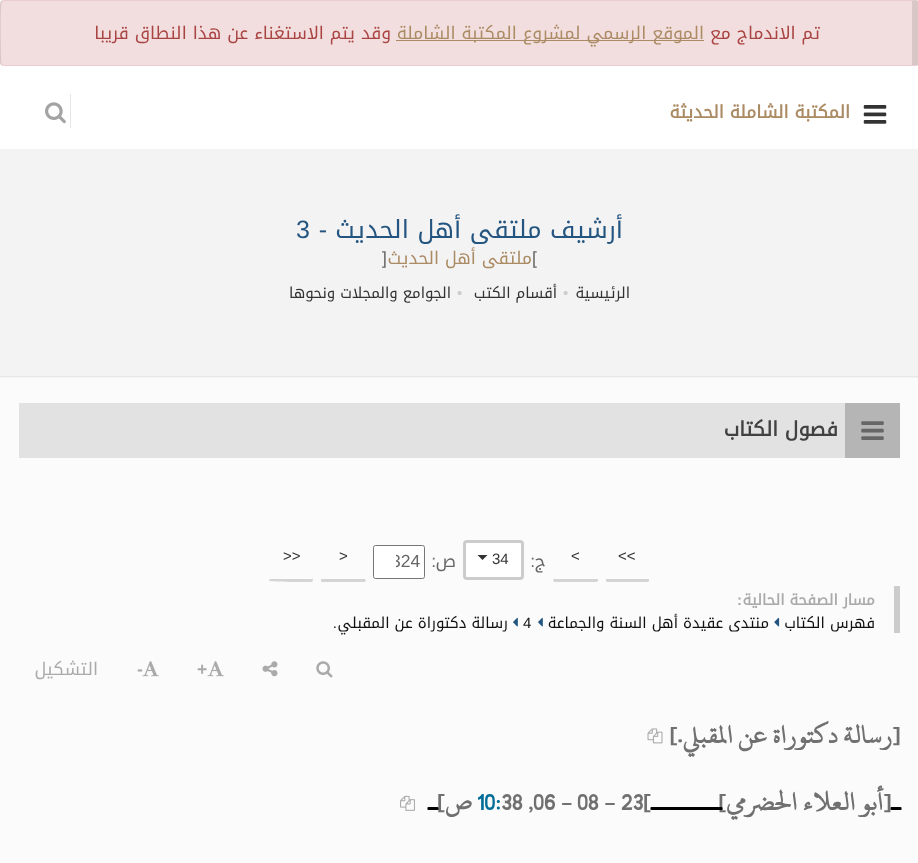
<svg xmlns="http://www.w3.org/2000/svg" width="918" height="863" viewBox="0 0 918 863">
  <style>
    .t1 { font: 17.5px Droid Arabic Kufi; direction: rtl; fill: #a94442; }
    .t2 { font: 17.5px Droid Arabic Kufi; direction: rtl; fill: #ab8b64; }
    .t3 { font: bold 17.5px Droid Arabic Kufi; direction: rtl; fill: #ab8b64; }
    .t4 { font: 25px Droid Arabic Kufi; direction: rtl; fill: #245580; }
    .t5 { font: 25px Liberation Sans; direction: rtl; fill: #245580; }
    .t6 { font: 25px Liberation Sans; fill: #245580; }
    .t7 { font: 17.5px Liberation Sans; fill: #666; }
    .t8 { font: 15px Droid Arabic Kufi; direction: rtl; fill: #333; }
    .t9 { font: 15px Liberation Sans; fill: #ccc; }
    .t10 { font: bold 20px Droid Arabic Kufi; direction: rtl; fill: #414141; }
    .t11 { font: 15px Liberation Sans; fill: #333; }
    .t12 { font: 17.5px Droid Arabic Kufi; direction: rtl; fill: #666; }
    .t13 { font: 17.5px Liberation Sans; direction: rtl; fill: #666; }
    .t14 { font: bold 15px Droid Arabic Kufi; direction: rtl; fill: #aaa; }
    .t15 { font: bold 15px Liberation Sans; direction: rtl; fill: #aaa; }
    .t16 { font: 15px Droid Arabic Kufi; direction: rtl; fill: #111; }
    .t17 { font: 15px Liberation Sans; fill: #111; }
    .t18 { font: 15px Liberation Sans; direction: rtl; fill: #111; }
    .t19 { font: bold 17.5px Liberation Sans; fill: #aaa; }
    .t20 { font: 17.5px Droid Arabic Kufi; direction: rtl; fill: #aaa; }
    .t21 { font: bold 27.5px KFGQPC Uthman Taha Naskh; direction: rtl; fill: #707070; }
    .t22 { font: bold 27.5px KFGQPC Uthman Taha Naskh; direction: rtl; fill: #000; }
    .t23 { font: bold 27.5px KFGQPC Uthman Taha Naskh; fill: #707070; }
    .t24 { font: bold 27.5px KFGQPC Uthman Taha Naskh; fill: #006d98; }
  </style>
  <defs>
    <clipPath id="clip1"><rect x="396" y="549" width="24" height="26"/></clipPath>
  </defs>
  <rect width="100%" height="100%" fill="#fff"/>
  <rect x="0" y="0" width="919" height="66" rx="4" fill="#f2dede"/>
  <path d="M4 0L1 1L2 2L4 1H912L917 0H915Z" fill="#ebccd1"/>
  <path d="M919 64C918 67 914 65 912 65V1L917 0L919 3Z" fill="#0000001a"/>
  <path d="M916 66H4L1 65L2 64L4 65H912Z" fill="#ebccd1"/>
  <path d="M0 4V63L1 65L2 64L1 62V52C1 46 0 4 2 2L1 1Z" fill="#0000001a"/>
  <text x="820" y="39" class="t1">تم الاندماج مع</text>
  <rect x="396" y="40" width="308" height="1" fill="#ab8b64"/>
  <text x="704" y="39" class="t2">الموقع الرسمي لمشروع المكتبة الشاملة</text>
  <text x="391" y="39" class="t1">وقد يتم الاستغناء عن هذا النطاق قريبا</text>
  <rect x="0" y="149" width="918" height="1" fill="#f2f2f2"/>
  <image x="863" y="105" width="24" height="19" href="images/1.png"/>
  <text x="850" y="118" class="t3">المكتبة الشاملة الحديثة</text>
  <rect x="70" y="94" width="1" height="34" fill="#e6e6e6"/>
  <image x="45" y="102" width="21" height="22" href="images/2.png"/>
  <rect x="0" y="150" width="918" height="228" fill="#f3f3f3"/>
  <rect x="0" y="376" width="918" height="1" fill="#e7e7e7"/>
  <text x="623" y="238" class="t4">أرشيف ملتقى أهل الحديث</text>
  <text x="327" y="238" class="t5">-</text>
  <text x="296" y="238" class="t6">3</text>
  <text x="532" y="264" class="t7">[</text>
  <text x="532" y="264" class="t2">ملتقى أهل الحديث</text>
  <text x="382" y="264" class="t7">]</text>
  <text x="630" y="298" class="t8">الرئيسية</text>
  <text x="563" y="298" class="t9">•</text>
  <text x="557" y="298" class="t8">أقسام الكتب</text>
  <text x="457" y="298" class="t9">•</text>
  <text x="451" y="298" class="t8">الجوامع والمجلات ونحوها</text>
  <rect x="0" y="378" width="918" height="485" fill="#fbfbfb"/>
  <rect x="19" y="403" width="826" height="55" fill="#e2e2e2"/>
  <rect x="845" y="403" width="55" height="55" fill="#b5b5b5"/>
  <image x="861" y="421" width="23" height="19" href="images/3.png"/>
  <text x="838" y="436" class="t10">فصول الكتاب</text>
  <path d="M649 581C649 582 647 582 646 582H609C608 582 606 582 606 581V579H649Z" fill="#d4d4d4"/>
  <text x="618" y="561" class="t11">&lt;&lt;</text>
  <path d="M598 581C597 582 596 582 595 582H556C555 582 554 582 553 581L554 578V579H598Z" fill="#d4d4d4"/>
  <text x="571" y="561" class="t11">&lt;</text>
  <text x="546" y="567" class="t12">ج</text>
  <text x="535" y="567" class="t13">:</text>
  <rect x="464.5" y="541.5" width="58" height="37" rx="2.5" fill="#fff" stroke="#ccc" stroke-width="3"/>
  <text x="492" y="564" class="t11">34</text>
  <path d="M477.5 555H487.5L482.5 560Z" fill="#333"/>
  <text x="456" y="567" class="t12">ص</text>
  <text x="436" y="567" class="t13">:</text>
  <rect x="373.5" y="545.5" width="51" height="33" rx="2" fill="#fff" stroke="#767676"/>
  <g clip-path="url(#clip1)">
    <text x="391" y="567" class="t7">324</text>
  </g>
  <path d="M366 581C365 582 364 582 362 582H324C323 582 321 582 321 581V579H365Z" fill="#d4d4d4"/>
  <text x="339" y="561" class="t11">&gt;</text>
  <path d="M313 581L311 582C308 582 271 582 270 581H269L270 579H312V577Z" fill="#d4d4d4"/>
  <text x="283" y="561" class="t11">&gt;&gt;</text>
  <rect x="894" y="586" width="6" height="47" fill="#ccc"/>
  <text x="875" y="605" class="t14">مسار الصفحة الحالية</text>
  <text x="742" y="605" class="t15">:</text>
  <text x="875" y="628" class="t16">فهرس الكتاب</text>
  <image x="774" y="617" width="6" height="10" href="images/4.png"/>
  <text x="769" y="628" class="t16">منتدى عقيدة أهل السنة والجماعة</text>
  <image x="538" y="617" width="5" height="10" href="images/5.png"/>
  <text x="523" y="628" class="t17">4</text>
  <image x="513" y="617" width="5" height="10" href="images/5.png"/>
  <text x="508" y="628" class="t16">رسالة دكتوراة عن المقبلي</text>
  <text x="337" y="628" class="t18">.</text>
  <image x="316" y="661" width="17" height="17" href="images/6.png"/>
  <image x="262" y="661" width="16" height="16" href="images/7.png"/>
  <image x="207" y="661" width="17" height="16" href="images/8.png"/>
  <text x="197" y="675" class="t19">+</text>
  <image x="142" y="661" width="17" height="16" href="images/8.png"/>
  <text x="137" y="675" class="t19">-</text>
  <text x="98" y="675" class="t20">التشكيل</text>
  <text x="900" y="743" class="t21">[رسالة دكتوراة عن المقبلي.]</text>
  <image x="647" y="728" width="16" height="16" href="images/9.png"/>
  <text x="900" y="810" class="t22">ـ</text>
  <text x="891" y="810" class="t21">[أبو العلاء الحضرمي]</text>
  <text x="721" y="810" class="t22">ــــــــ</text>
  <text x="528" y="810" class="t23">,06 - 08 - 23[</text>
  <text x="501" y="810" class="t23">38</text>
  <text x="477" y="810" class="t24">10:</text>
  <text x="472" y="810" class="t21">ص]</text>
  <text x="437" y="810" class="t22">ـ</text>
  <image x="400" y="795" width="15" height="16" href="images/10.png"/>
</svg>
